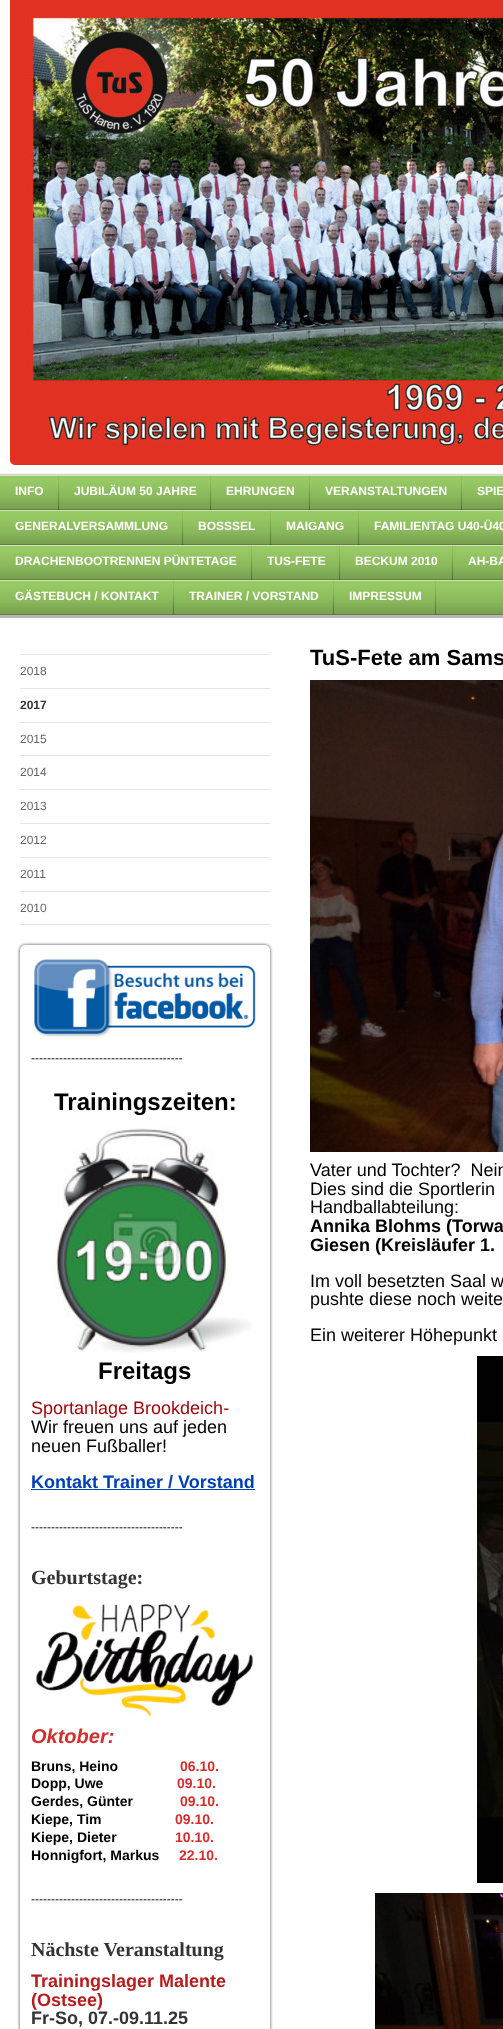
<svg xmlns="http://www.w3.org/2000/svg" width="503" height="2029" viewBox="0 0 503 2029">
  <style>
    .t1 { font: bold 12px Liberation Sans; fill: #fff; }
    .t2 { font: 12px Liberation Sans; fill: #666; }
    .t3 { font: bold 12px Liberation Sans; fill: #333; }
    .t4 { font: 12px Liberation Sans; fill: #000; }
    .t5 { font: bold 24px Liberation Sans; fill: #000; }
    .t6 { font: 18px Liberation Sans; fill: #9f0408; }
    .t7 { font: 18px Liberation Sans; fill: #000; }
    .t8 { font: bold 18px Liberation Sans; fill: #0040b6; }
    .t9 { font: bold 20px Liberation Serif; fill: #333; }
    .t10 { font: italic bold 20px Liberation Sans; fill: #d32f2f; }
    .t11 { font: bold 14px Liberation Sans; fill: #000; }
    .t12 { font: bold 14px Liberation Sans; fill: #d32f2f; }
    .t13 { font: bold 18px Liberation Sans; fill: #b71c1c; }
    .t14 { font: bold 18px Liberation Sans; fill: #333; }
    .t15 { font: bold 22px Liberation Sans; fill: #000; }
    .t16 { font: bold 18px Liberation Sans; fill: #000; }
  </style>
  <rect width="100%" height="100%" fill="#fff"/>
  <image x="10" y="0" width="493" height="465" href="images/1.png"/>
  <image x="10" y="460" width="5" height="5" href="images/2.png"/>
  <image x="0" y="473" width="503" height="2" href="images/3.png"/>
  <rect x="0" y="475" width="503" height="140" fill="#9c6"/>
  <image x="0" y="475" width="503" height="140" href="images/4.png"/>
  <image x="58" y="475" width="1" height="35" href="images/5.png"/>
  <text x="15" y="495" class="t1">INFO</text>
  <image x="210" y="475" width="1" height="35" href="images/5.png"/>
  <text x="74" y="495" class="t1">JUBILÄUM 50 JAHRE</text>
  <image x="309" y="475" width="1" height="35" href="images/5.png"/>
  <text x="226" y="495" class="t1">EHRUNGEN</text>
  <image x="461" y="475" width="1" height="35" href="images/5.png"/>
  <text x="325" y="495" class="t1">VERANSTALTUNGEN</text>
  <text x="477" y="495" class="t1">SPIE</text>
  <image x="182" y="510" width="1" height="35" href="images/5.png"/>
  <text x="15" y="530" class="t1">GENERALVERSAMMLUNG</text>
  <image x="270" y="510" width="1" height="35" href="images/5.png"/>
  <text x="198" y="530" class="t1">BOSSSEL</text>
  <image x="358" y="510" width="1" height="35" href="images/5.png"/>
  <text x="286" y="530" class="t1">MAIGANG</text>
  <text x="374" y="530" class="t1">FAMILIENTAG U40-Ü40</text>
  <image x="251" y="545" width="1" height="35" href="images/5.png"/>
  <text x="15" y="565" class="t1">DRACHENBOOTRENNEN PÜNTETAGE</text>
  <image x="339" y="545" width="1" height="35" href="images/5.png"/>
  <text x="267" y="565" class="t1">TUS-FETE</text>
  <image x="452" y="545" width="1" height="35" href="images/5.png"/>
  <text x="355" y="565" class="t1">BECKUM 2010</text>
  <text x="468" y="565" class="t1">AH-BA</text>
  <image x="173" y="580" width="1" height="35" href="images/5.png"/>
  <text x="15" y="600" class="t1">GÄSTEBUCH / KONTAKT</text>
  <image x="333" y="580" width="1" height="35" href="images/5.png"/>
  <text x="189" y="600" class="t1">TRAINER / VORSTAND</text>
  <image x="435" y="580" width="1" height="35" href="images/5.png"/>
  <text x="349" y="600" class="t1">IMPRESSUM</text>
  <rect x="0" y="615" width="503" height="3" fill="#b7b7b7"/>
  <rect x="20" y="654" width="250" height="1" fill="#e5e5e5"/>
  <text x="20" y="675" class="t2">2018</text>
  <rect x="20" y="688" width="250" height="1" fill="#e5e5e5"/>
  <text x="20" y="709" class="t3">2017</text>
  <rect x="20" y="722" width="250" height="1" fill="#e5e5e5"/>
  <text x="20" y="743" class="t2">2015</text>
  <rect x="20" y="755" width="250" height="1" fill="#e5e5e5"/>
  <text x="20" y="776" class="t2">2014</text>
  <rect x="20" y="789" width="250" height="1" fill="#e5e5e5"/>
  <text x="20" y="810" class="t2">2013</text>
  <rect x="20" y="823" width="250" height="1" fill="#e5e5e5"/>
  <text x="20" y="844" class="t2">2012</text>
  <rect x="20" y="857" width="250" height="1" fill="#e5e5e5"/>
  <text x="20" y="878" class="t2">2011</text>
  <rect x="20" y="891" width="250" height="1" fill="#e5e5e5"/>
  <rect x="20" y="924" width="250" height="1" fill="#e5e5e5"/>
  <text x="20" y="912" class="t2">2010</text>
  <image x="17" y="942" width="256" height="9" href="images/6.png"/>
  <image x="17" y="951" width="256" height="1078" href="images/7.png"/>
  <image x="31" y="959" width="225" height="78" href="images/8.png"/>
  <text x="31" y="1062" class="t4">--------------------------------------</text>
  <text x="54" y="1110" class="t5">Trainingszeiten:</text>
  <image x="54" y="1125" width="198" height="228" href="images/9.png"/>
  <text x="98" y="1379" class="t5">Freitags</text>
  <text x="31" y="1414" class="t6">Sportanlage Brookdeich-</text>
  <text x="31" y="1433" class="t7">Wir freuen uns auf jeden</text>
  <text x="31" y="1452" class="t7">neuen Fußballer!</text>
  <text x="31" y="1488" class="t8">Kontakt Trainer / Vorstand</text>
  <rect x="31" y="1489" width="224" height="1" fill="#0040b6"/>
  <text x="31" y="1531" class="t4">--------------------------------------</text>
  <text x="31" y="1584" class="t9">Geburtstage:</text>
  <image x="35" y="1604" width="218" height="113" href="images/10.png"/>
  <text x="31" y="1743" class="t10">Oktober:</text>
  <text x="31" y="1771" class="t11">Bruns, Heino</text>
  <text x="180" y="1771" class="t12">06.10.</text>
  <text x="31" y="1788" class="t11">Dopp, Uwe</text>
  <text x="177" y="1788" class="t12">09.10.</text>
  <text x="31" y="1806" class="t11">Gerdes, Günter</text>
  <text x="180" y="1806" class="t12">09.10.</text>
  <text x="31" y="1824" class="t11">Kiepe, Tim</text>
  <text x="175" y="1824" class="t12">09.10.</text>
  <text x="31" y="1842" class="t11">Kiepe, Dieter</text>
  <text x="175" y="1842" class="t12">10.10.</text>
  <text x="31" y="1860" class="t11">Honnigfort, Markus</text>
  <text x="179" y="1860" class="t12">22.10.</text>
  <text x="31" y="1903" class="t4">--------------------------------------</text>
  <text x="31" y="1956" class="t9">Nächste Veranstaltung</text>
  <text x="31" y="1987" class="t13">Trainingslager Malente</text>
  <text x="31" y="2006" class="t13">(Ostsee)</text>
  <text x="31" y="2024" class="t14">Fr-So, 07.-09.11.25</text>
  <text x="310" y="665" class="t15">TuS-Fete am Sams</text>
  <image x="310" y="680" width="193" height="472" href="images/11.png"/>
  <text x="310" y="1176" class="t7" xml:space="preserve">Vater und Tochter?  Nein</text>
  <text x="310" y="1195" class="t7">Dies sind die Sportlerin</text>
  <text x="310" y="1213" class="t7">Handballabteilung:</text>
  <text x="310" y="1232" class="t16">Annika Blohms (Torwa</text>
  <text x="310" y="1251" class="t16">Giesen (Kreisläufer 1.</text>
  <text x="310" y="1287" class="t7">Im voll besetzten Saal w</text>
  <text x="310" y="1305" class="t7">pushte diese noch weite</text>
  <text x="310" y="1341" class="t7">Ein weiterer Höhepunkt</text>
  <image x="477" y="1356" width="26" height="527" href="images/12.png"/>
  <image x="375" y="1893" width="128" height="136" href="images/13.png"/>
</svg>
